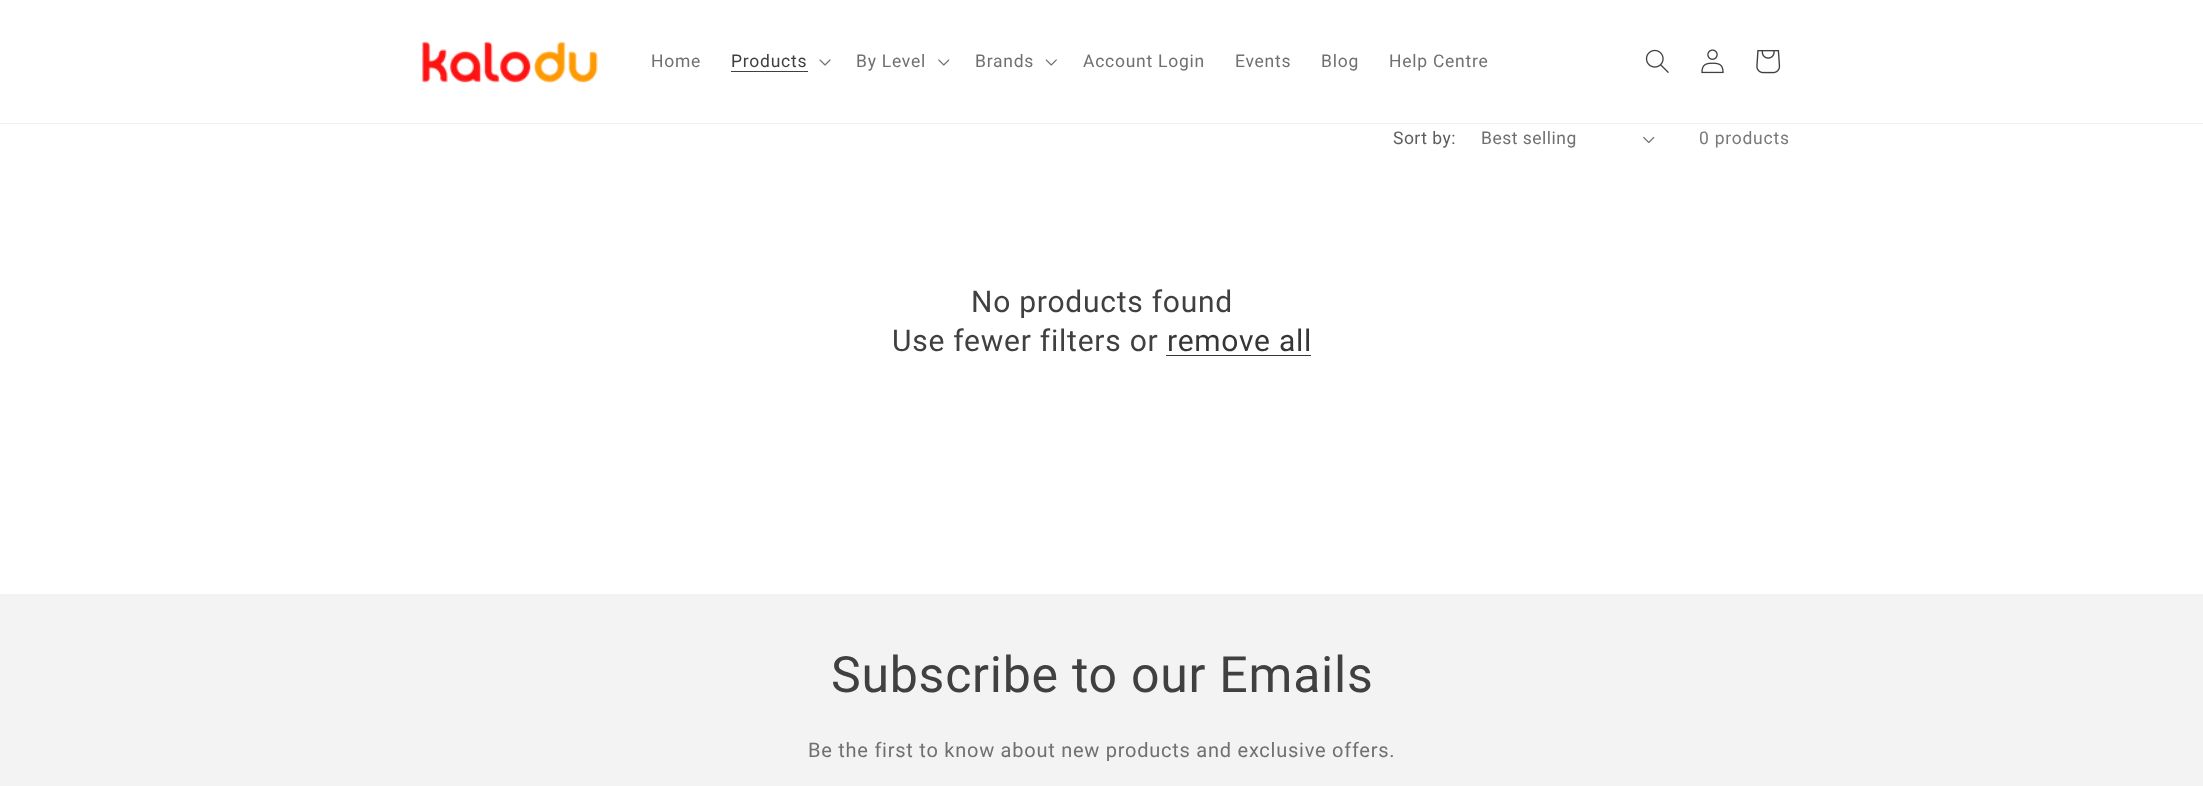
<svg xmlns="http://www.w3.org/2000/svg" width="2203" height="786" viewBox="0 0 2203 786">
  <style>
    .t1 { font: 17.5px Roboto; letter-spacing: 0.75px; fill: #707070; }
    .t2 { font: 17.5px Roboto; letter-spacing: 0.75px; fill: #404040; }
    .t3 { font: 17.5px Roboto; letter-spacing: 0.5px; fill: #5d5d5d; }
    .t4 { font: 17.5px Roboto; letter-spacing: 0.5px; fill: #707070; }
    .t5 { font: 17.5px Roboto; letter-spacing: 0.75px; fill: #797979; }
    .t6 { font: 30px Roboto; letter-spacing: 0.75px; fill: #404040; }
    .t7 { font: 30px Roboto; letter-spacing: 0.75px; fill: #363636; }
    .t8 { font: 50px Roboto; letter-spacing: 0.75px; fill: #404040; }
    .t9 { font: 20px Roboto; letter-spacing: 0.75px; fill: #707070; }
  </style>
  <rect width="100%" height="100%" fill="#fff"/>
  <rect x="0" y="123" width="2203" height="1" fill="#f0f0f0"/>
  <image x="422" y="41" width="176" height="42" href="images/1.png"/>
  <text x="651" y="67" class="t1">Home</text>
  <text x="731" y="67" class="t2">Products</text>
  <rect x="731" y="71" width="77" height="1" fill="#404040"/>
  <image x="819" y="59" width="12" height="7" href="images/2.png"/>
  <text x="856" y="67" class="t1">By Level</text>
  <image x="938" y="59" width="12" height="7" href="images/3.png"/>
  <text x="975" y="67" class="t1">Brands</text>
  <image x="1045" y="59" width="12" height="7" href="images/4.png"/>
  <text x="1083" y="67" class="t1">Account Login</text>
  <text x="1235" y="67" class="t1">Events</text>
  <text x="1321" y="67" class="t1">Blog</text>
  <text x="1389" y="67" class="t1">Help Centre</text>
  <image x="1645" y="49" width="24" height="24" href="images/5.png"/>
  <image x="1701" y="49" width="23" height="25" href="images/6.png"/>
  <image x="1756" y="50" width="25" height="24" href="images/7.png"/>
  <text x="1393" y="144" class="t3">Sort by:</text>
  <text x="1481" y="144" class="t4">Best selling</text>
  <image x="1643" y="136" width="12" height="8" href="images/8.png"/>
  <text x="1699" y="144" class="t5">0 products</text>
  <text x="971" y="312" class="t6">No products found</text>
  <text x="892" y="351" class="t6">Use fewer filters or</text>
  <text x="1167" y="351" class="t7">remove all</text>
  <rect x="1166" y="355" width="145" height="1" fill="#363636"/>
  <rect x="0" y="594" width="2203" height="192" fill="#f3f3f3"/>
  <text x="831" y="692" class="t8">Subscribe to our Emails</text>
  <text x="808" y="757" class="t9">Be the first to know about new products and exclusive offers.</text>
</svg>
